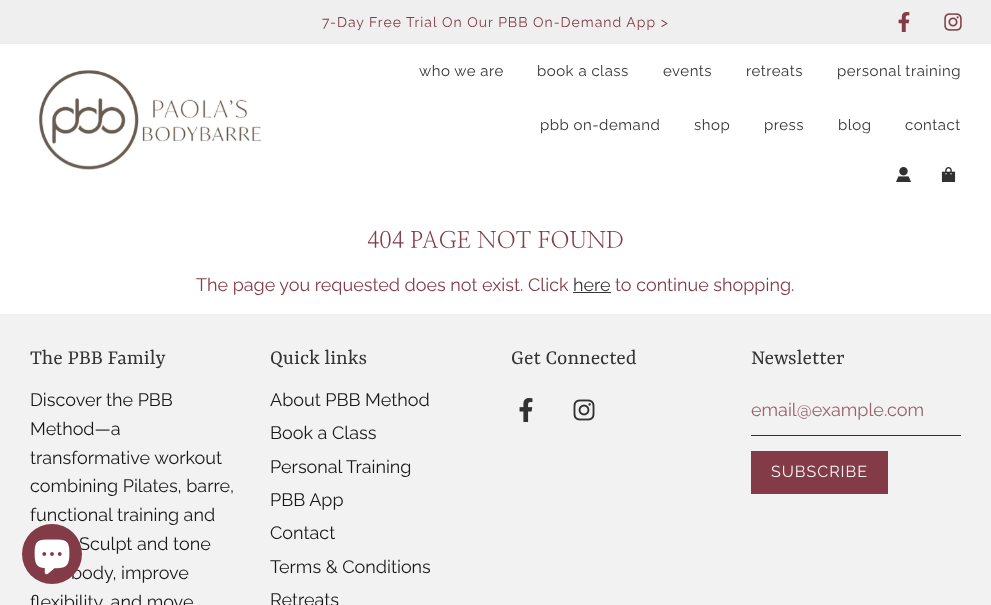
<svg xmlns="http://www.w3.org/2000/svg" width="991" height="605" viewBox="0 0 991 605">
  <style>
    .t1 { font: 14px Raleway; letter-spacing: 1px; fill: #833b47; }
    .t2 { font: 15px Raleway; letter-spacing: 0.5px; fill: #343434; }
    .t3 { font: 23px NanumMyeongjo; fill: #833b47; }
    .t4 { font: 18px Raleway; fill: #833b47; }
    .t5 { font: 18px Raleway; fill: #343434; }
    .t6 { font: 22px Rasa; fill: #343434; }
    .t7 { font: 18px Raleway; fill: #181818; }
    .t8 { font: 18px Raleway; fill: #996069; }
    .t9 { font: 16px Raleway; letter-spacing: 1px; fill: #f4f4f4; }
  </style>
  <rect width="100%" height="100%" fill="#fff"/>
  <rect x="0" y="0" width="991" height="44" fill="#efefef"/>
  <text x="322" y="27" class="t1">7-Day Free Trial On Our PBB On-Demand App &gt;</text>
  <image x="898" y="12" width="12" height="20" href="images/1.png"/>
  <image x="944" y="13" width="18" height="18" href="images/2.png"/>
  <image x="39" y="70" width="223" height="100" href="images/3.png"/>
  <text x="419" y="76" class="t2">who we are</text>
  <text x="537" y="76" class="t2">book a class</text>
  <text x="663" y="76" class="t2">events</text>
  <text x="746" y="76" class="t2">retreats</text>
  <text x="837" y="76" class="t2">personal training</text>
  <text x="540" y="130" class="t2">pbb on-demand</text>
  <text x="694" y="130" class="t2">shop</text>
  <text x="764" y="130" class="t2">press</text>
  <text x="838" y="130" class="t2">blog</text>
  <text x="905" y="130" class="t2">contact</text>
  <image x="896" y="167" width="15" height="15" href="images/4.png"/>
  <image x="941" y="167" width="15" height="15" href="images/5.png"/>
  <text x="367" y="248" class="t3">404 PAGE NOT FOUND</text>
  <text x="196" y="291" class="t4">The page you requested does not exist. Click</text>
  <text x="573" y="291" class="t5">here</text>
  <rect x="573" y="292" width="38" height="1" fill="#343434"/>
  <text x="615" y="291" class="t4">to continue shopping.</text>
  <rect x="0" y="314" width="991" height="291" fill="#f2f2f2"/>
  <text x="30" y="364" class="t6">The PBB Family</text>
  <text x="30" y="406" class="t7">Discover the PBB</text>
  <text x="30" y="435" class="t7">Method—a</text>
  <text x="30" y="464" class="t7">transformative workout</text>
  <text x="30" y="492" class="t7">combining Pilates, barre,</text>
  <text x="30" y="521" class="t7">functional training and</text>
  <text x="79" y="550" class="t7">Sculpt and tone</text>
  <text x="71" y="579" class="t7">body, improve</text>
  <text x="30" y="608" class="t7">flexibility, and move</text>
  <text x="270" y="364" class="t6">Quick links</text>
  <text x="270" y="406" class="t7">About PBB Method</text>
  <text x="270" y="439" class="t7">Book a Class</text>
  <text x="270" y="473" class="t7">Personal Training</text>
  <text x="270" y="506" class="t7">PBB App</text>
  <text x="270" y="539" class="t7">Contact</text>
  <text x="270" y="573" class="t7">Terms &amp; Conditions</text>
  <text x="270" y="606" class="t7">Retreats</text>
  <text x="511" y="364" class="t6">Get Connected</text>
  <image x="519" y="398" width="14" height="24" href="images/6.png"/>
  <image x="573" y="399" width="22" height="22" href="images/7.png"/>
  <text x="751" y="364" class="t6">Newsletter</text>
  <rect x="751" y="435" width="210" height="1" fill="#323131"/>
  <text x="751" y="416" class="t8">email@example.com</text>
  <rect x="751" y="451" width="137" height="43" fill="#833b47"/>
  <text x="771" y="477" class="t9">SUBSCRIBE</text>
  <circle cx="52" cy="554" r="30" fill="#833b47"/>
  <image x="34" y="539" width="36" height="36" href="images/8.png"/>
</svg>
